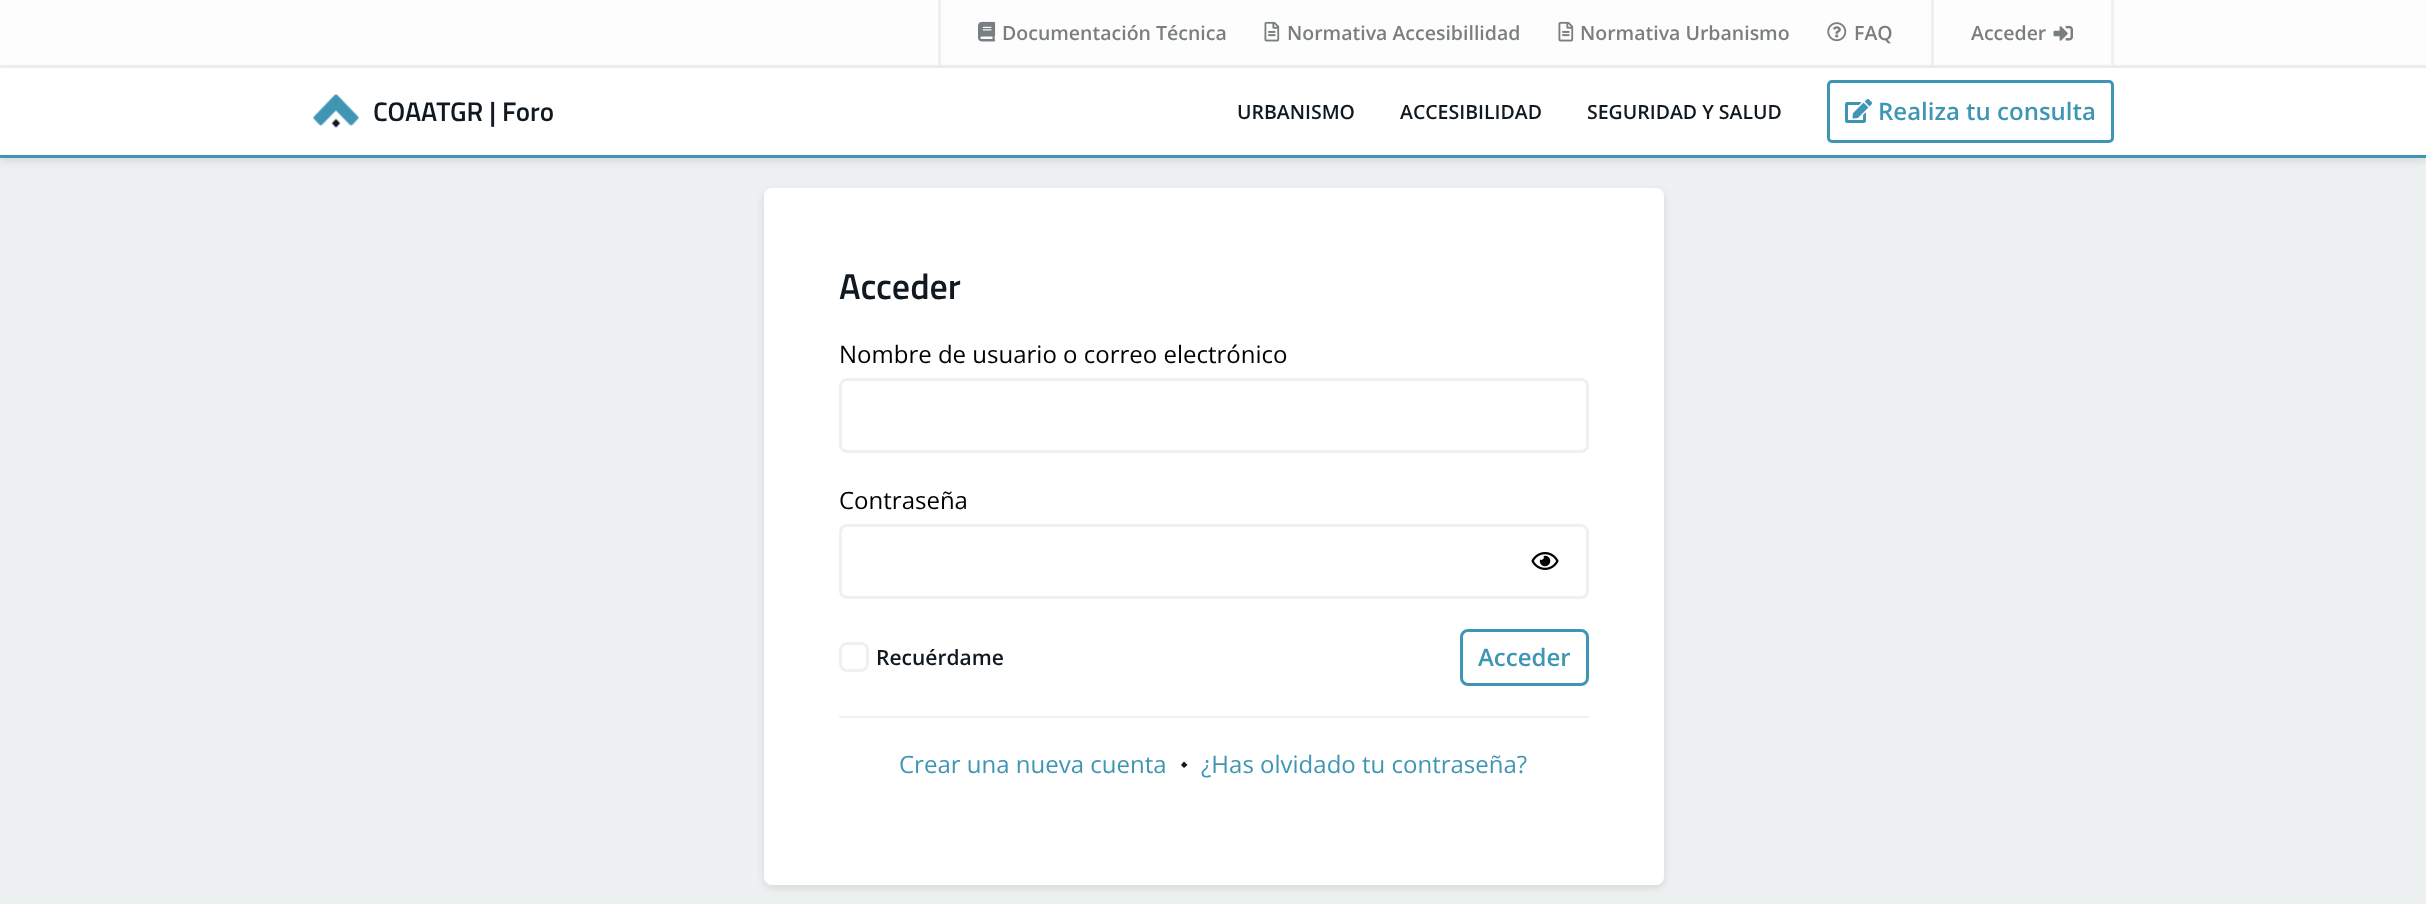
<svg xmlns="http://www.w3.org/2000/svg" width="2426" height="904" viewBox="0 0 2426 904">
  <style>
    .t1 { font: 600 19.5px Open Sans; fill: #797f80; }
    .t2 { font: 600 27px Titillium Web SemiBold; fill: #111920; }
    .t3 { font: 600 19.5px Open Sans; fill: #111920; }
    .t4 { font: 600 24px Open Sans; fill: #3f96b4; }
    .t5 { font: 600 36px Titillium Web SemiBold; fill: #111920; }
    .t6 { font: 24px Open Sans; fill: #000; }
    .t7 { font: 600 21px Open Sans; fill: #111920; }
    .t8 { font: 24px Open Sans; fill: #3f96b4; }
  </style>
  <rect width="100%" height="100%" fill="#edf1f2"/>
  <rect x="0" y="0" width="2426" height="65" fill="#fdfdfd"/>
  <rect x="938" y="0" width="3" height="65" fill="#edf1f2"/>
  <image x="978" y="21" width="18" height="21" href="images/1.png"/>
  <text x="1002" y="40" class="t1">Documentación Técnica</text>
  <image x="1264" y="21" width="16" height="21" href="images/2.png"/>
  <text x="1287" y="40" class="t1">Normativa Accesibillidad</text>
  <image x="1558" y="21" width="16" height="21" href="images/2.png"/>
  <text x="1580" y="40" class="t1">Normativa Urbanismo</text>
  <image x="1827" y="22" width="20" height="20" href="images/3.png"/>
  <text x="1854" y="40" class="t1">FAQ</text>
  <rect x="2111" y="0" width="3" height="65" fill="#edf1f2"/>
  <rect x="1931" y="0" width="3" height="65" fill="#edf1f2"/>
  <text x="1971" y="40" class="t1">Acceder</text>
  <image x="2053" y="25" width="20" height="16" href="images/4.png"/>
  <rect x="0" y="71" width="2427" height="90" fill="#0000001a" filter="blur(4px)"/>
  <rect x="0" y="68" width="2426" height="87" fill="#fff"/>
  <rect x="0" y="155" width="2426" height="3" fill="#3f96b4"/>
  <image x="313" y="94" width="46" height="34" href="images/5.png"/>
  <text x="373" y="121" class="t2">COAATGR | Foro</text>
  <text x="1237" y="119" class="t3">URBANISMO</text>
  <text x="1400" y="119" class="t3">ACCESIBILIDAD</text>
  <text x="1587" y="119" class="t3">SEGURIDAD Y SALUD</text>
  <rect x="1828.5" y="81.5" width="284" height="60" rx="3.5" fill="none" stroke="#3f96b4" stroke-width="3"/>
  <image x="1845" y="99" width="27" height="24" href="images/6.png"/>
  <text x="1878" y="120" class="t4">Realiza tu consulta</text>
  <rect x="764" y="191" width="900" height="697" rx="8" fill="#0000001a" filter="blur(4px)"/>
  <rect x="764" y="188" width="900" height="697" rx="8" fill="#fff"/>
  <text x="839" y="299" class="t5">Acceder</text>
  <text x="839" y="363" class="t6">Nombre de usuario o correo electrónico</text>
  <rect x="840.5" y="379.5" width="747" height="72" rx="6.5" fill="none" stroke="#edf1f2" stroke-width="3"/>
  <text x="839" y="509" class="t6">Contraseña</text>
  <rect x="840.5" y="525.5" width="747" height="72" rx="6.5" fill="none" stroke="#edf1f2" stroke-width="3"/>
  <image x="1531" y="552" width="28" height="18" href="images/7.png"/>
  <rect x="840.5" y="643.5" width="27" height="27" rx="6.5" fill="none" stroke="#edf1f2" stroke-width="3"/>
  <text x="876" y="665" class="t7">Recuérdame</text>
  <rect x="1461.5" y="630.5" width="126" height="54" rx="6.5" fill="none" stroke="#3f96b4" stroke-width="3"/>
  <text x="1478" y="666" class="t4">Acceder</text>
  <rect x="839" y="716" width="750" height="2" fill="#edf1f2"/>
  <text x="899" y="773" class="t8">Crear una nueva cuenta</text>
  <path d="M1184 761.5L1187.5 765L1184 768L1181 765Z" fill="#111920"/>
  <text x="1201" y="773" class="t8">¿Has olvidado tu contraseña?</text>
</svg>
